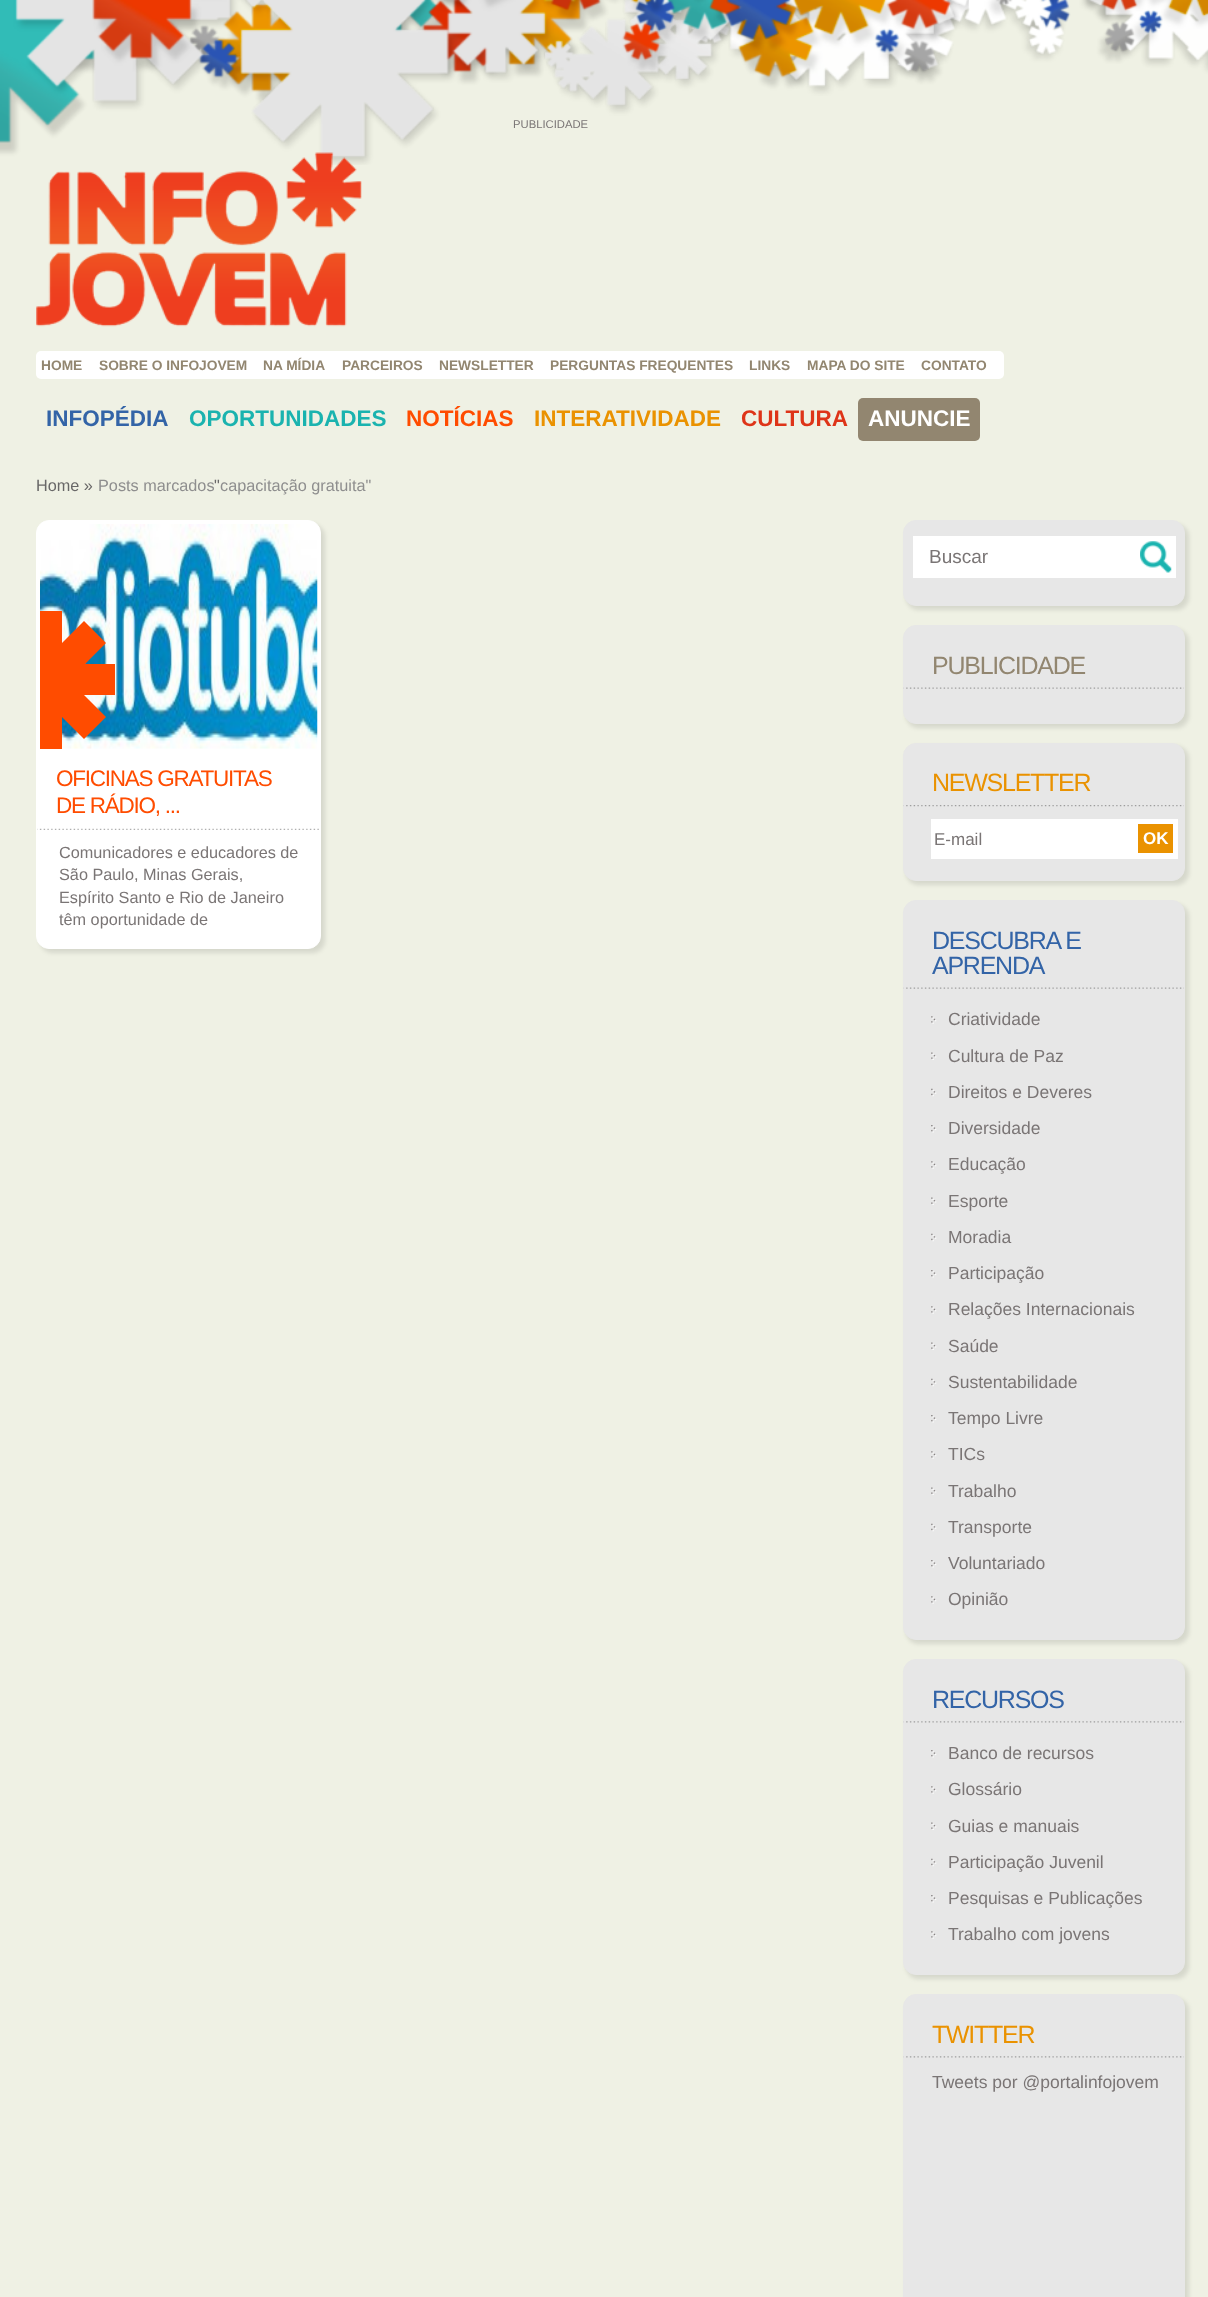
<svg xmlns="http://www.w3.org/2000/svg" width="1208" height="2297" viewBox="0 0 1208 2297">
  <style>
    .t1 { font: 11.25px Liberation Sans; fill: #7a7575; }
    .t2 { font: bold 13.75px Liberation Sans; fill: #928670; }
    .t3 { font: bold 22.5px Liberation Sans; fill: #3364a7; }
    .t4 { font: bold 22.5px Liberation Sans; fill: #1ab3af; }
    .t5 { font: bold 22.5px Liberation Sans; fill: #ff4c00; }
    .t6 { font: bold 22.5px Liberation Sans; fill: #ea9200; }
    .t7 { font: bold 22.5px Liberation Sans; fill: #de3418; }
    .t8 { font: bold 22.5px Liberation Sans; fill: #fff; }
    .t9 { font: 16.25px Liberation Sans; fill: #686767; }
    .t10 { font: 16.25px Liberation Sans; fill: #8e8e8e; }
    .t11 { font: 22.5px Liberation Sans; letter-spacing: -1.25px; fill: #ff4c00; }
    .t12 { font: 16.25px Liberation Sans; fill: #7a7575; }
    .t13 { font: 19px Liberation Sans; fill: #7a7575; }
    .t14 { font: 25px Liberation Sans; letter-spacing: -1.25px; fill: #928670; }
    .t15 { font: 25px Liberation Sans; letter-spacing: -1.25px; fill: #ea9200; }
    .t16 { font: 17px Liberation Sans; fill: #7a7575; }
    .t17 { font: bold 17px Liberation Sans; fill: #fff; }
    .t18 { font: 25px Liberation Sans; letter-spacing: -1.25px; fill: #3364a7; }
    .t19 { font: 17.5px Liberation Sans; fill: #7a7575; }
  </style>
  <defs>
    <clipPath id="clip1"><rect x="40" y="524" width="278" height="225"/></clipPath>
  </defs>
  <rect width="100%" height="100%" fill="#eff1e4"/>
  <image x="0" y="0" width="1208" height="165" href="images/1.png"/>
  <text x="513" y="128" class="t1">PUBLICIDADE</text>
  <image x="36" y="152" width="326" height="175" href="images/2.png"/>
  <rect x="36" y="351" width="968" height="28" rx="5" fill="#fff"/>
  <text x="41" y="370" class="t2">HOME</text>
  <text x="99" y="370" class="t2">SOBRE O INFOJOVEM</text>
  <text x="263" y="370" class="t2">NA MÍDIA</text>
  <text x="342" y="370" class="t2">PARCEIROS</text>
  <text x="439" y="370" class="t2">NEWSLETTER</text>
  <text x="550" y="370" class="t2">PERGUNTAS FREQUENTES</text>
  <text x="749" y="370" class="t2">LINKS</text>
  <text x="807" y="370" class="t2">MAPA DO SITE</text>
  <text x="921" y="370" class="t2">CONTATO</text>
  <text x="46" y="426" class="t3">INFOPÉDIA</text>
  <text x="189" y="426" class="t4">OPORTUNIDADES</text>
  <text x="406" y="426" class="t5">NOTÍCIAS</text>
  <text x="534" y="426" class="t6">INTERATIVIDADE</text>
  <text x="741" y="426" class="t7">CULTURA</text>
  <rect x="858" y="398" width="122" height="43" rx="5" fill="#928670"/>
  <text x="868" y="426" class="t8">ANUNCIE</text>
  <text x="36" y="491" class="t9">Home »</text>
  <text x="98" y="491" class="t10">Posts marcados</text>
  <text x="214" y="491" class="t9">"</text>
  <text x="220" y="491" class="t10">capacitação gratuita"</text>
  <rect x="40" y="524" width="285" height="429" rx="13" fill="#0000001a" filter="blur(2px)"/>
  <rect x="36.5" y="520.5" width="284" height="428" rx="12.5" fill="#fff" stroke="#fff"/>
  <image x="40" y="524" width="278" height="225" href="images/3.png"/>
  <rect x="69" y="664" width="46" height="31" fill="#ff4c00"/>
  <rect x="40" y="611" width="22" height="138" fill="#ff4c00"/>
  <g clip-path="url(#clip1)">
    <path d="M9 620L106 717L84 739L-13 642Z" fill="#ff4c00"/>
    <path d="M106 643L9 740L-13 718L84 621Z" fill="#ff4c00"/>
  </g>
  <text x="56" y="786" class="t11">OFICINAS GRATUITAS</text>
  <text x="56" y="813" class="t11">DE RÁDIO, ...</text>
  <image x="37" y="828" width="282" height="2" href="images/4.png"/>
  <text x="59" y="858" class="t12">Comunicadores e educadores de</text>
  <text x="59" y="880" class="t12">São Paulo, Minas Gerais,</text>
  <text x="59" y="903" class="t12">Espírito Santo e Rio de Janeiro</text>
  <text x="59" y="925" class="t12">têm oportunidade de</text>
  <rect x="906" y="524" width="283" height="86" rx="13" fill="#0000001a" filter="blur(2px)"/>
  <rect x="903.5" y="520.5" width="281" height="85" rx="12.5" fill="#e7e7e7" stroke="#e7e7e7"/>
  <rect x="913" y="536" width="263" height="42" fill="#fff"/>
  <text x="929" y="563" class="t13">Buscar</text>
  <image x="1140" y="541" width="32" height="32" href="images/5.png"/>
  <rect x="906" y="629" width="283" height="99" rx="13" fill="#0000001a" filter="blur(2px)"/>
  <rect x="903.5" y="625.5" width="281" height="98" rx="12.5" fill="#e7e7e7" stroke="#e7e7e7"/>
  <image x="903" y="687" width="281" height="2" href="images/6.png"/>
  <text x="932" y="674" class="t14">PUBLICIDADE</text>
  <rect x="906" y="746" width="283" height="139" rx="13" fill="#0000001a" filter="blur(2px)"/>
  <rect x="903.5" y="743.5" width="281" height="137" rx="12.5" fill="#e7e7e7" stroke="#e7e7e7"/>
  <image x="903" y="805" width="281" height="2" href="images/7.png"/>
  <text x="932" y="791" class="t15">NEWSLETTER</text>
  <rect x="931" y="819" width="247" height="40" fill="#fff"/>
  <text x="934" y="845" class="t16">E-mail</text>
  <rect x="1138" y="824" width="35" height="29" fill="#ea9200"/>
  <text x="1143" y="844" class="t17">OK</text>
  <rect x="906" y="904" width="283" height="740" rx="13" fill="#0000001a" filter="blur(2px)"/>
  <rect x="903.5" y="900.5" width="281" height="739" rx="12.5" fill="#e7e7e7" stroke="#e7e7e7"/>
  <image x="903" y="987" width="281" height="2" href="images/6.png"/>
  <text x="932" y="949" class="t18">DESCUBRA E</text>
  <text x="932" y="974" class="t18">APRENDA</text>
  <image x="931" y="1016" width="6" height="8" href="images/8.png"/>
  <text x="948" y="1025" class="t19">Criatividade</text>
  <image x="931" y="1052" width="6" height="8" href="images/9.png"/>
  <text x="948" y="1062" class="t19">Cultura de Paz</text>
  <image x="931" y="1088" width="6" height="9" href="images/10.png"/>
  <text x="948" y="1098" class="t19">Direitos e Deveres</text>
  <image x="931" y="1125" width="6" height="8" href="images/11.png"/>
  <text x="948" y="1134" class="t19">Diversidade</text>
  <image x="931" y="1161" width="6" height="8" href="images/8.png"/>
  <text x="948" y="1170" class="t19">Educação</text>
  <image x="931" y="1197" width="6" height="8" href="images/9.png"/>
  <text x="948" y="1207" class="t19">Esporte</text>
  <image x="931" y="1233" width="6" height="9" href="images/10.png"/>
  <text x="948" y="1243" class="t19">Moradia</text>
  <image x="931" y="1270" width="6" height="8" href="images/11.png"/>
  <text x="948" y="1279" class="t19">Participação</text>
  <image x="931" y="1306" width="6" height="8" href="images/8.png"/>
  <text x="948" y="1315" class="t19">Relações Internacionais</text>
  <image x="931" y="1342" width="6" height="8" href="images/9.png"/>
  <text x="948" y="1352" class="t19">Saúde</text>
  <image x="931" y="1378" width="6" height="9" href="images/10.png"/>
  <text x="948" y="1388" class="t19">Sustentabilidade</text>
  <image x="931" y="1415" width="6" height="8" href="images/11.png"/>
  <text x="948" y="1424" class="t19">Tempo Livre</text>
  <image x="931" y="1451" width="6" height="8" href="images/8.png"/>
  <text x="948" y="1460" class="t19">TICs</text>
  <image x="931" y="1487" width="6" height="8" href="images/9.png"/>
  <text x="948" y="1497" class="t19">Trabalho</text>
  <image x="931" y="1523" width="6" height="9" href="images/10.png"/>
  <text x="948" y="1533" class="t19">Transporte</text>
  <image x="931" y="1560" width="6" height="8" href="images/11.png"/>
  <text x="948" y="1569" class="t19">Voluntariado</text>
  <image x="931" y="1596" width="6" height="8" href="images/8.png"/>
  <text x="948" y="1605" class="t19">Opinião</text>
  <rect x="906" y="1663" width="283" height="316" rx="13" fill="#0000001a" filter="blur(2px)"/>
  <rect x="903.5" y="1659.5" width="281" height="315" rx="12.5" fill="#e7e7e7" stroke="#e7e7e7"/>
  <image x="903" y="1721" width="281" height="2" href="images/12.png"/>
  <text x="932" y="1708" class="t18">RECURSOS</text>
  <image x="931" y="1750" width="6" height="8" href="images/11.png"/>
  <text x="948" y="1759" class="t19">Banco de recursos</text>
  <image x="931" y="1786" width="6" height="8" href="images/8.png"/>
  <text x="948" y="1795" class="t19">Glossário</text>
  <image x="931" y="1822" width="6" height="8" href="images/9.png"/>
  <text x="948" y="1832" class="t19">Guias e manuais</text>
  <image x="931" y="1858" width="6" height="9" href="images/10.png"/>
  <text x="948" y="1868" class="t19">Participação Juvenil</text>
  <image x="931" y="1895" width="6" height="8" href="images/11.png"/>
  <text x="948" y="1904" class="t19">Pesquisas e Publicações</text>
  <image x="931" y="1931" width="6" height="8" href="images/8.png"/>
  <text x="948" y="1940" class="t19">Trabalho com jovens</text>
  <rect x="906" y="1998" width="283" height="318" rx="13" fill="#0000001a" filter="blur(2px)"/>
  <rect x="903.5" y="1994.5" width="281" height="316" rx="12.5" fill="#e7e7e7" stroke="#e7e7e7"/>
  <image x="903" y="2056" width="281" height="2" href="images/12.png"/>
  <text x="932" y="2043" class="t15">TWITTER</text>
  <text x="932" y="2088" class="t19">Tweets por @portalinfojovem</text>
</svg>
